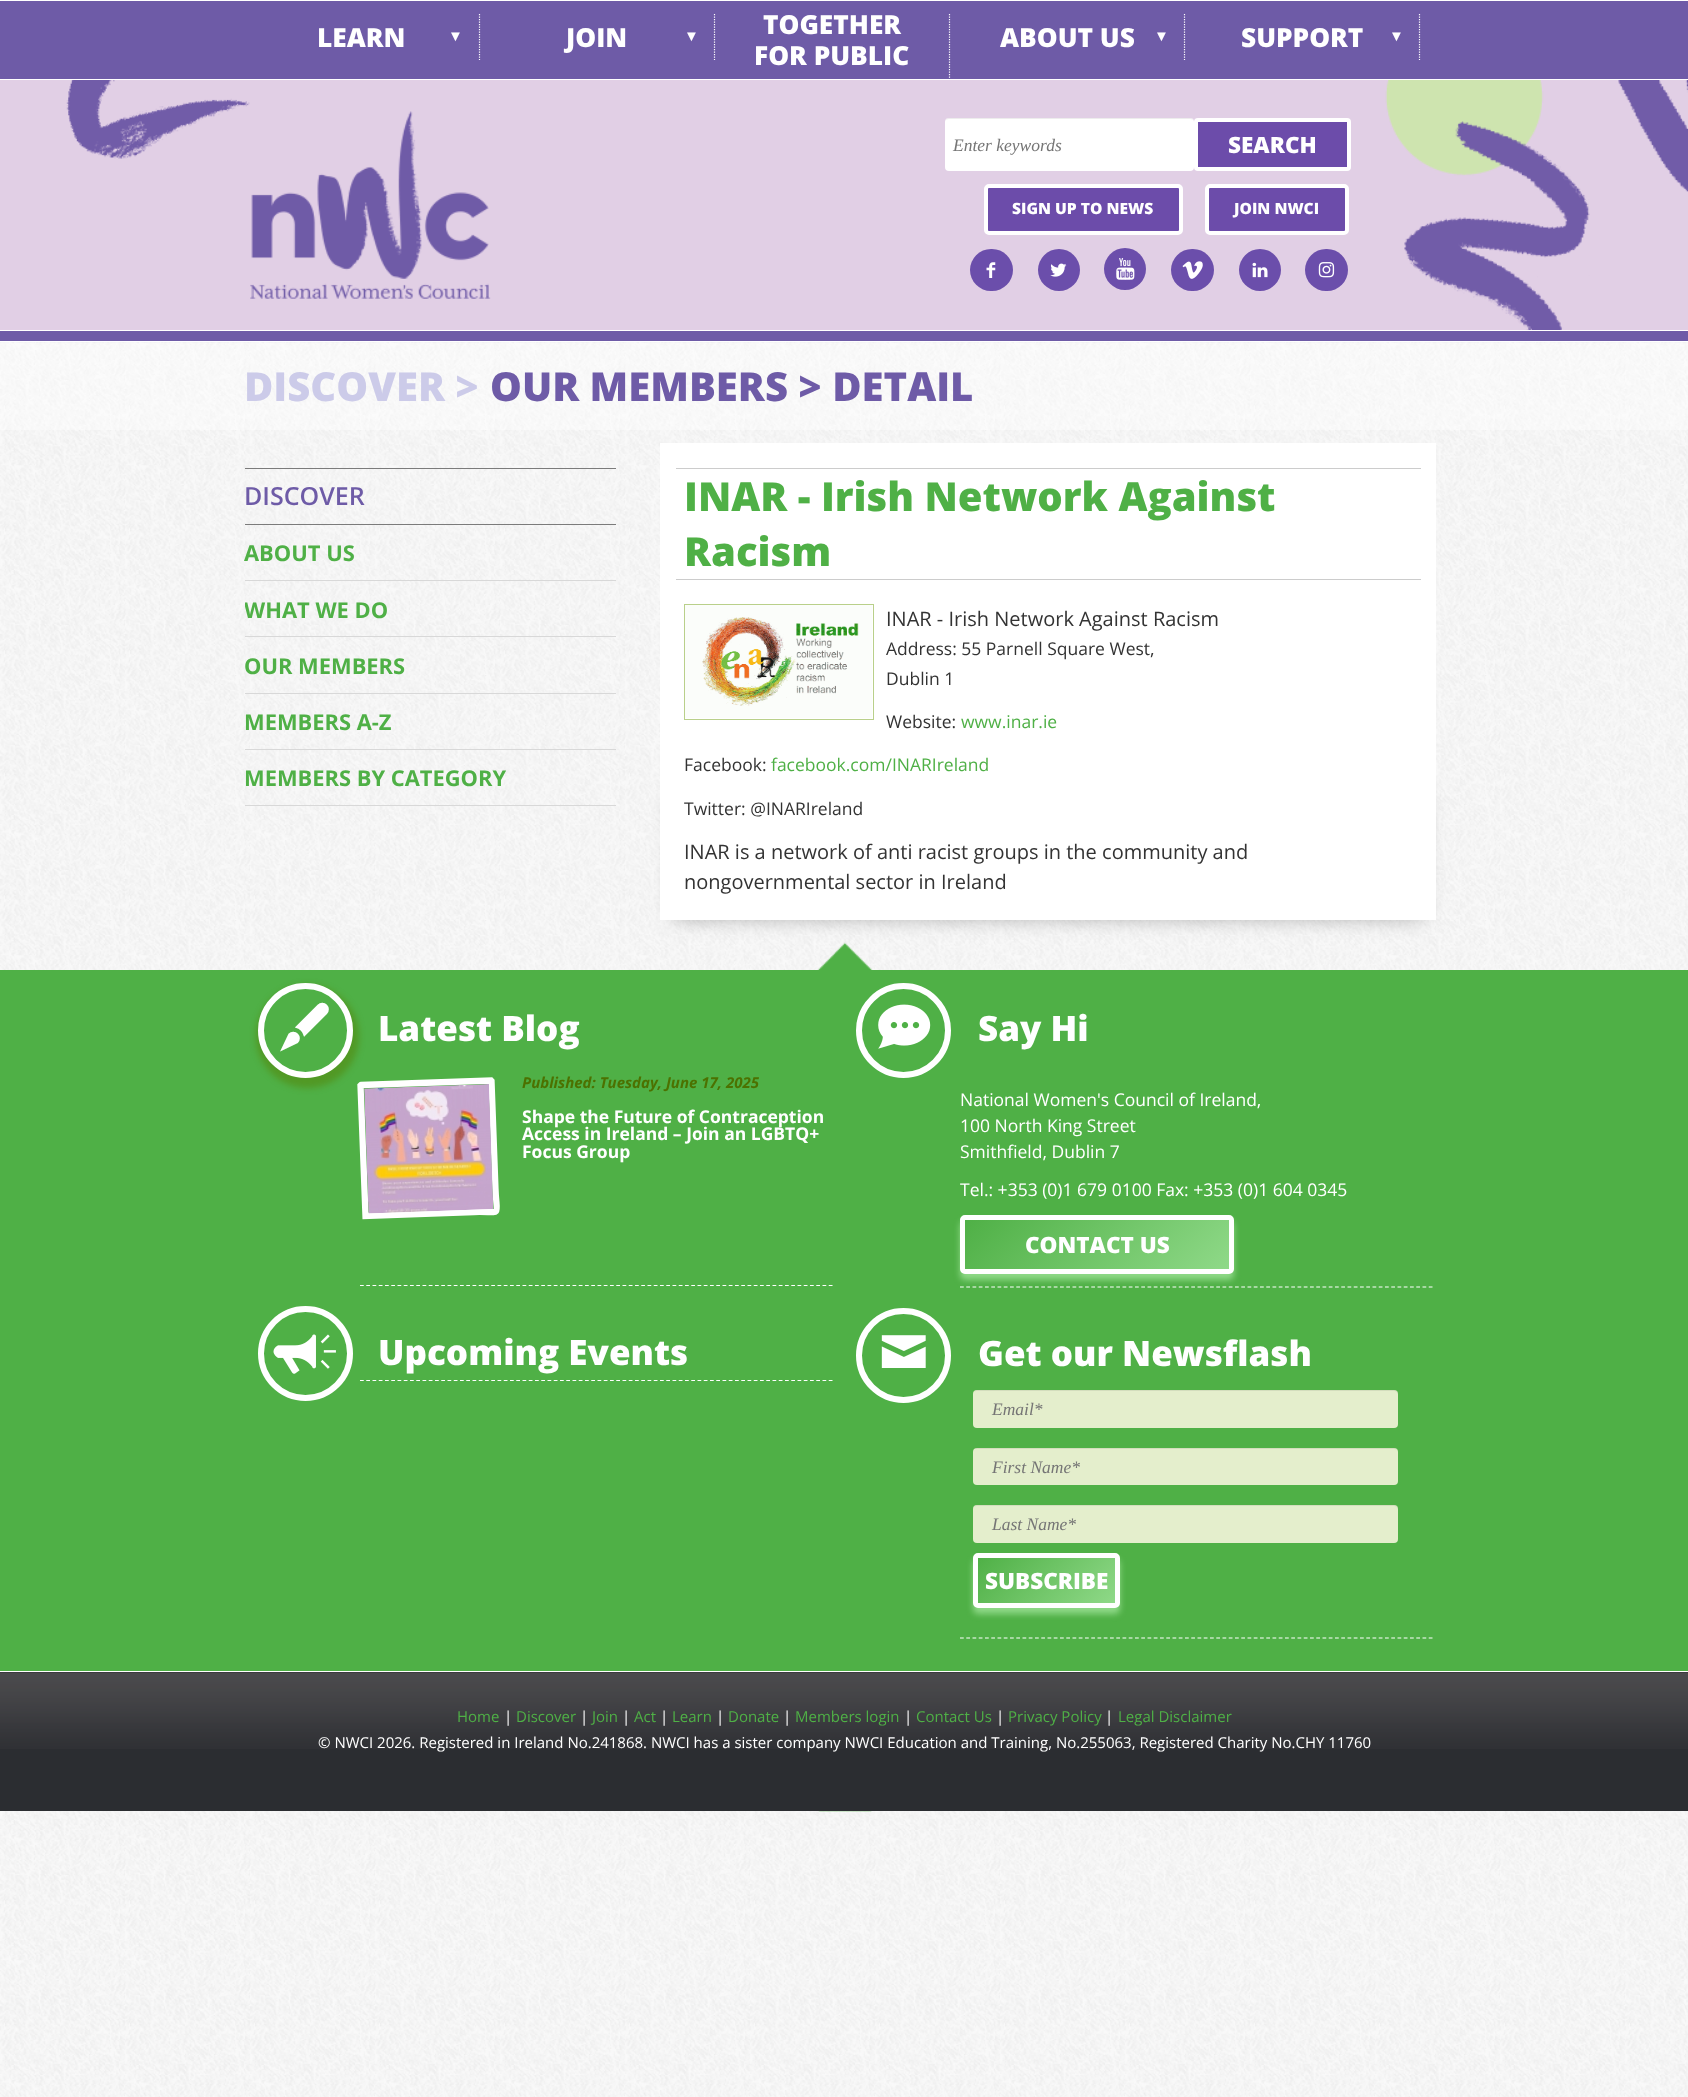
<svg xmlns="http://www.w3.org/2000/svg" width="1688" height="2097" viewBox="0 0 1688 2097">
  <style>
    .t1 { font: 800 26.25px Open Sans; fill: #fff; }
    .t2 { font: 15px Liberation Sans; fill: #fff; }
    .t3 { font: italic 17.5px Liberation Serif; fill: #757575; }
    .t4 { font: 800 22.5px Open Sans; fill: #fff; }
    .t5 { font: 800 15.6px Open Sans; fill: #fff; }
    .t6 { font: 800 40px Open Sans; fill: #cccbe9; }
    .t7 { font: 800 40px Open Sans; fill: #6e5ba7; }
    .t8 { font: 600 25px Open Sans; fill: #6e5ba7; }
    .t9 { font: bold 21.9px Open Sans; fill: #4fb046; }
    .t10 { font: 800 40px Open Sans; fill: #4fb046; }
    .t11 { font: 20px Open Sans; fill: #333; }
    .t12 { font: 17.5px Open Sans; fill: #333; }
    .t13 { font: 17.5px Open Sans; fill: #4fb046; }
    .t14 { font: bold 52px '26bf'; fill: #fff; }
    .t15 { font: 800 35px Open Sans; fill: #fff; }
    .t16 { font: italic bold 15px Open Sans; fill: #4c7100; }
    .t17 { font: bold 17.5px Open Sans; fill: #fff; }
    .t18 { font: 17.5px Open Sans; fill: #fff; }
    .t19 { font: 500 49px '26bf'; fill: #fff; }
    .t20 { font: 15px Open Sans; fill: #4fb046; }
    .t21 { font: 15px Open Sans; fill: #fff; }
  </style>
  <defs>
    <clipPath id="clip1"><rect x="245" y="430" width="1200" height="540"/></clipPath>
    <linearGradient id="g1" gradientUnits="userSpaceOnUse" x1="1019" y1="1166" x2="1175" y2="1323"><stop offset="0" stop-color="#4fb046"/><stop offset="1" stop-color="#8fd988"/></linearGradient>
    <linearGradient id="g2" gradientUnits="userSpaceOnUse" x1="1001" y1="1534" x2="1092" y2="1626"><stop offset="0" stop-color="#4fb046"/><stop offset="1" stop-color="#8fd988"/></linearGradient>
  </defs>
  <rect width="100%" height="100%" fill="#fff"/>
  <image x="0" y="1811" width="1688" height="286" href="images/1.png"/>
  <rect x="0" y="1" width="1688" height="78" fill="#6e5ba7"/>
  <path d="M479.5 14V60" fill="none" stroke="#fff" stroke-width="1.2" stroke-dasharray="1.25 1.25"/>
  <text x="317" y="47" class="t1">LEARN</text>
  <text x="448" y="41" class="t2">▼</text>
  <path d="M714.5 14V60" fill="none" stroke="#fff" stroke-width="1.2" stroke-dasharray="1.25 1.25"/>
  <text x="566" y="47" class="t1">JOIN</text>
  <text x="684" y="41" class="t2">▼</text>
  <path d="M949.5 14V79" fill="none" stroke="#fff" stroke-width="1.2" stroke-dasharray="1.25 1.25"/>
  <text x="763" y="34" class="t1">TOGETHER</text>
  <text x="754" y="65" class="t1">FOR PUBLIC</text>
  <path d="M1184.5 14V60" fill="none" stroke="#fff" stroke-width="1.2" stroke-dasharray="1.25 1.25"/>
  <text x="1000" y="47" class="t1">ABOUT US</text>
  <text x="1154" y="41" class="t2">▼</text>
  <path d="M1419.5 14V60" fill="none" stroke="#fff" stroke-width="1.2" stroke-dasharray="1.25 1.25"/>
  <text x="1241" y="47" class="t1">SUPPORT</text>
  <text x="1389" y="41" class="t2">▼</text>
  <rect x="0" y="80" width="1688" height="250" fill="#e1cfe5"/>
  <image x="66" y="80" width="1622" height="250" href="images/2.png"/>
  <image x="250" y="111" width="241" height="188" href="images/3.png"/>
  <rect x="945" y="118" width="249" height="53" rx="4" fill="#fff"/>
  <path d="M949 119H1190C1192 119 1194 120 1194 122C1194 120 1192 118 1190 118H949C947 118 945 120 945 122C945 120 947 119 949 119Z" fill="#00000012"/>
  <text x="953" y="151" class="t3">Enter keywords</text>
  <rect x="1196" y="120" width="153" height="49" rx="2" fill="#6c4caa" stroke="#fff" stroke-width="4"/>
  <text x="1228" y="153" class="t4">SEARCH</text>
  <rect x="986" y="186" width="195" height="47" rx="3" fill="#6c4caa" stroke="#fff" stroke-width="4"/>
  <text x="1012" y="214" class="t5">SIGN UP TO NEWS</text>
  <rect x="1207" y="186" width="140" height="47" rx="3" fill="#6c4caa" stroke="#fff" stroke-width="4"/>
  <text x="1234" y="214" class="t5">JOIN NWCI</text>
  <rect x="970" y="249" width="43" height="42" rx="21" fill="#6b4eab"/>
  <image x="986" y="262" width="10" height="16" href="images/4.png"/>
  <circle cx="1059" cy="270" r="21" fill="#6b4eab"/>
  <image x="1050" y="263" width="17" height="14" href="images/5.png"/>
  <circle cx="1125" cy="269" r="21" fill="#6b4eab"/>
  <image x="1116" y="258" width="19" height="22" href="images/6.png"/>
  <rect x="1171" y="249" width="43" height="42" rx="21" fill="#6b4eab"/>
  <image x="1182" y="261" width="21" height="18" href="images/7.png"/>
  <circle cx="1260" cy="270" r="21" fill="#6b4eab"/>
  <image x="1252" y="262" width="16" height="16" href="images/8.png"/>
  <rect x="1305" y="249" width="43" height="42" rx="21" fill="#6b4eab"/>
  <image x="1318" y="262" width="17" height="16" href="images/9.png"/>
  <rect x="0" y="331" width="1688" height="10" fill="#6e5ba7"/>
  <image x="0" y="342" width="1688" height="628" href="images/10.png"/>
  <rect x="0" y="343" width="1688" height="87" fill="#ffffff66"/>
  <text x="244" y="401" class="t6">DISCOVER &gt;</text>
  <text x="490" y="401" class="t7">OUR MEMBERS &gt; DETAIL</text>
  <rect x="245" y="468" width="371" height="1" fill="#7b7b7b"/>
  <rect x="245" y="524" width="371" height="1" fill="#7b7b7b"/>
  <text x="244" y="505" class="t8">DISCOVER</text>
  <rect x="245" y="580" width="371" height="1" fill="#d8d8d8"/>
  <text x="244" y="561" class="t9">ABOUT US</text>
  <rect x="245" y="636" width="371" height="1" fill="#d8d8d8"/>
  <g clip-path="url(#clip1)">
    <text x="244" y="618" class="t9">WHAT WE DO</text>
  </g>
  <rect x="245" y="693" width="371" height="1" fill="#d8d8d8"/>
  <text x="244" y="674" class="t9">OUR MEMBERS</text>
  <rect x="245" y="749" width="371" height="1" fill="#d8d8d8"/>
  <text x="244" y="730" class="t9">MEMBERS A-Z</text>
  <rect x="245" y="805" width="371" height="1" fill="#d8d8d8"/>
  <text x="244" y="786" class="t9">MEMBERS BY CATEGORY</text>
  <rect x="673" y="793" width="375" height="125" fill="#0000004d" filter="blur(10px)"/>
  <rect x="1049" y="793" width="375" height="125" fill="#0000004d" filter="blur(10px)"/>
  <rect x="660" y="443" width="776" height="477" fill="#fff"/>
  <rect x="676" y="468" width="745" height="1" fill="#ccc"/>
  <rect x="676" y="579" width="745" height="1" fill="#ccc"/>
  <text x="684" y="511" class="t10">INAR - Irish Network Against</text>
  <text x="684" y="566" class="t10">Racism</text>
  <rect x="684.5" y="604.5" width="189" height="115" fill="none" stroke="#b9d08a"/>
  <image x="685" y="605" width="187" height="113" href="images/11.png"/>
  <text x="886" y="626" class="t11">INAR - Irish Network Against Racism</text>
  <text x="886" y="655" class="t12">Address: 55 Parnell Square West,</text>
  <text x="886" y="685" class="t12">Dublin 1</text>
  <text x="886" y="728" class="t12">Website:</text>
  <text x="961" y="728" class="t13">www.inar.ie</text>
  <text x="684" y="771" class="t12">Facebook:</text>
  <text x="771" y="771" class="t13">facebook.com/INARIreland</text>
  <text x="684" y="815" class="t12">Twitter: @INARIreland</text>
  <text x="684" y="859" class="t11">INAR is a network of anti racist groups in the community and</text>
  <text x="684" y="889" class="t11">nongovernmental sector in Ireland</text>
  <rect x="0" y="970" width="1688" height="701" fill="#4fb046"/>
  <rect x="256" y="985" width="103" height="103" rx="51.5" fill="#54820380" filter="blur(3px)"/>
  <circle cx="305.5" cy="1030.5" r="44.5" fill="#4fb046" stroke="#fff" stroke-width="6"/>
  <text x="280" y="1048" class="t14">✐</text>
  <path d="M360 1285.5H832.5" fill="none" stroke="#fff" stroke-width="1.2" stroke-dasharray="3.75 2.5"/>
  <text x="378" y="1041" class="t15">Latest Blog</text>
  <path d="M361 1085L491 1080.5L491.5 1081L495.5 1189C496.5 1218.5 503 1211 474 1212L365.5 1216L360.5 1085.5Z" fill="none" stroke="#fff" stroke-width="6.3"/>
  <image x="364" y="1084" width="130" height="130" href="images/12.png"/>
  <text x="522" y="1088" class="t16">Published: Tuesday, June 17, 2025</text>
  <text x="522" y="1123" class="t17">Shape the Future of Contraception</text>
  <text x="522" y="1140" class="t17">Access in Ireland – Join an LGBTQ+</text>
  <text x="522" y="1158" class="t17">Focus Group</text>
  <circle cx="305.5" cy="1353.5" r="44.5" fill="none" stroke="#fff" stroke-width="6"/>
  <image x="273" y="1334" width="63" height="40" href="images/13.png"/>
  <path d="M360 1380.5H832.5" fill="none" stroke="#fff" stroke-width="1.2" stroke-dasharray="3.75 2.5"/>
  <text x="378" y="1365" class="t15">Upcoming Events</text>
  <circle cx="903.5" cy="1030.5" r="44.5" fill="none" stroke="#fff" stroke-width="6"/>
  <image x="878" y="1004" width="53" height="45" href="images/14.png"/>
  <path d="M960 1287H1432.5" fill="none" stroke="#fff" stroke-width="1.2" stroke-dasharray="3.75 2.5"/>
  <text x="978" y="1041" class="t15">Say Hi</text>
  <text x="960" y="1106" class="t18">National Women's Council of Ireland,</text>
  <text x="960" y="1132" class="t18">100 North King Street</text>
  <text x="960" y="1158" class="t18">Smithfield, Dublin 7</text>
  <text x="960" y="1196" class="t18">Tel.: +353 (0)1 679 0100 Fax: +353 (0)1 604 0345</text>
  <rect x="960" y="1221" width="274" height="59" rx="5" fill="#8fd988" filter="blur(3px)"/>
  <rect x="965" y="1220" width="264" height="49" fill="url(#g1)"/>
  <rect x="962.5" y="1217.5" width="269" height="54" rx="2.5" fill="none" stroke="#fff" stroke-width="5"/>
  <text x="1025" y="1253" class="t4">CONTACT US</text>
  <circle cx="903.5" cy="1355.5" r="44.5" fill="none" stroke="#fff" stroke-width="6"/>
  <text x="881" y="1371" class="t19">✉</text>
  <path d="M960 1638H1432.5" fill="none" stroke="#fff" stroke-width="1.2" stroke-dasharray="3.75 2.5"/>
  <text x="978" y="1366" class="t15">Get our Newsflash</text>
  <rect x="973" y="1390" width="425" height="38" rx="4" fill="#e4eecc"/>
  <path d="M976 1391H1394C1396 1391 1398 1393 1398 1395V1394C1398 1392 1396 1390 1394 1390H977C976 1390 974 1391 974 1392Z" fill="#00000012"/>
  <text x="992" y="1415" class="t3">Email*</text>
  <rect x="973" y="1448" width="425" height="37" rx="4" fill="#e4eecc"/>
  <path d="M976 1449H1394C1396 1449 1398 1450 1398 1452C1398 1450 1396 1448 1394 1448H976L974 1449Z" fill="#00000012"/>
  <text x="992" y="1473" class="t3">First Name*</text>
  <rect x="973" y="1505" width="425" height="38" rx="4" fill="#e4eecc"/>
  <path d="M976 1506H1394C1396 1506 1398 1508 1398 1510V1509C1398 1507 1396 1505 1394 1505H977C976 1505 974 1506 974 1507Z" fill="#00000012"/>
  <text x="992" y="1530" class="t3">Last Name*</text>
  <rect x="973" y="1559" width="147" height="55" rx="5" fill="#8fd988" filter="blur(3px)"/>
  <rect x="978" y="1558" width="137" height="45" fill="url(#g2)"/>
  <rect x="975.5" y="1555.5" width="142" height="50" rx="2.5" fill="none" stroke="#fff" stroke-width="5"/>
  <text x="985" y="1589" class="t4">SUBSCRIBE</text>
  <rect x="0" y="1672" width="1688" height="139" fill="#2b2d31"/>
  <image x="0" y="1672" width="1688" height="77" href="images/15.png"/>
  <text x="457" y="1722" class="t20">Home</text>
  <text x="504" y="1722" class="t21">|</text>
  <text x="516" y="1722" class="t20">Discover</text>
  <text x="580" y="1722" class="t21">|</text>
  <text x="592" y="1722" class="t20">Join</text>
  <text x="622" y="1722" class="t21">|</text>
  <text x="634" y="1722" class="t20">Act</text>
  <text x="660" y="1722" class="t21">|</text>
  <text x="672" y="1722" class="t20">Learn</text>
  <text x="716" y="1722" class="t21">|</text>
  <text x="728" y="1722" class="t20">Donate</text>
  <text x="783" y="1722" class="t21">|</text>
  <text x="795" y="1722" class="t20">Members login</text>
  <text x="904" y="1722" class="t21">|</text>
  <text x="916" y="1722" class="t20">Contact Us</text>
  <text x="996" y="1722" class="t21">|</text>
  <text x="1008" y="1722" class="t20">Privacy Policy</text>
  <text x="1105" y="1722" class="t21">|</text>
  <text x="1118" y="1722" class="t20">Legal Disclaimer</text>
  <text x="318" y="1748" class="t21">© NWCI 2026. Registered in Ireland No.241868. NWCI has a sister company NWCI Education and Training, No.255063, Registered Charity No.CHY 11760</text>
</svg>
